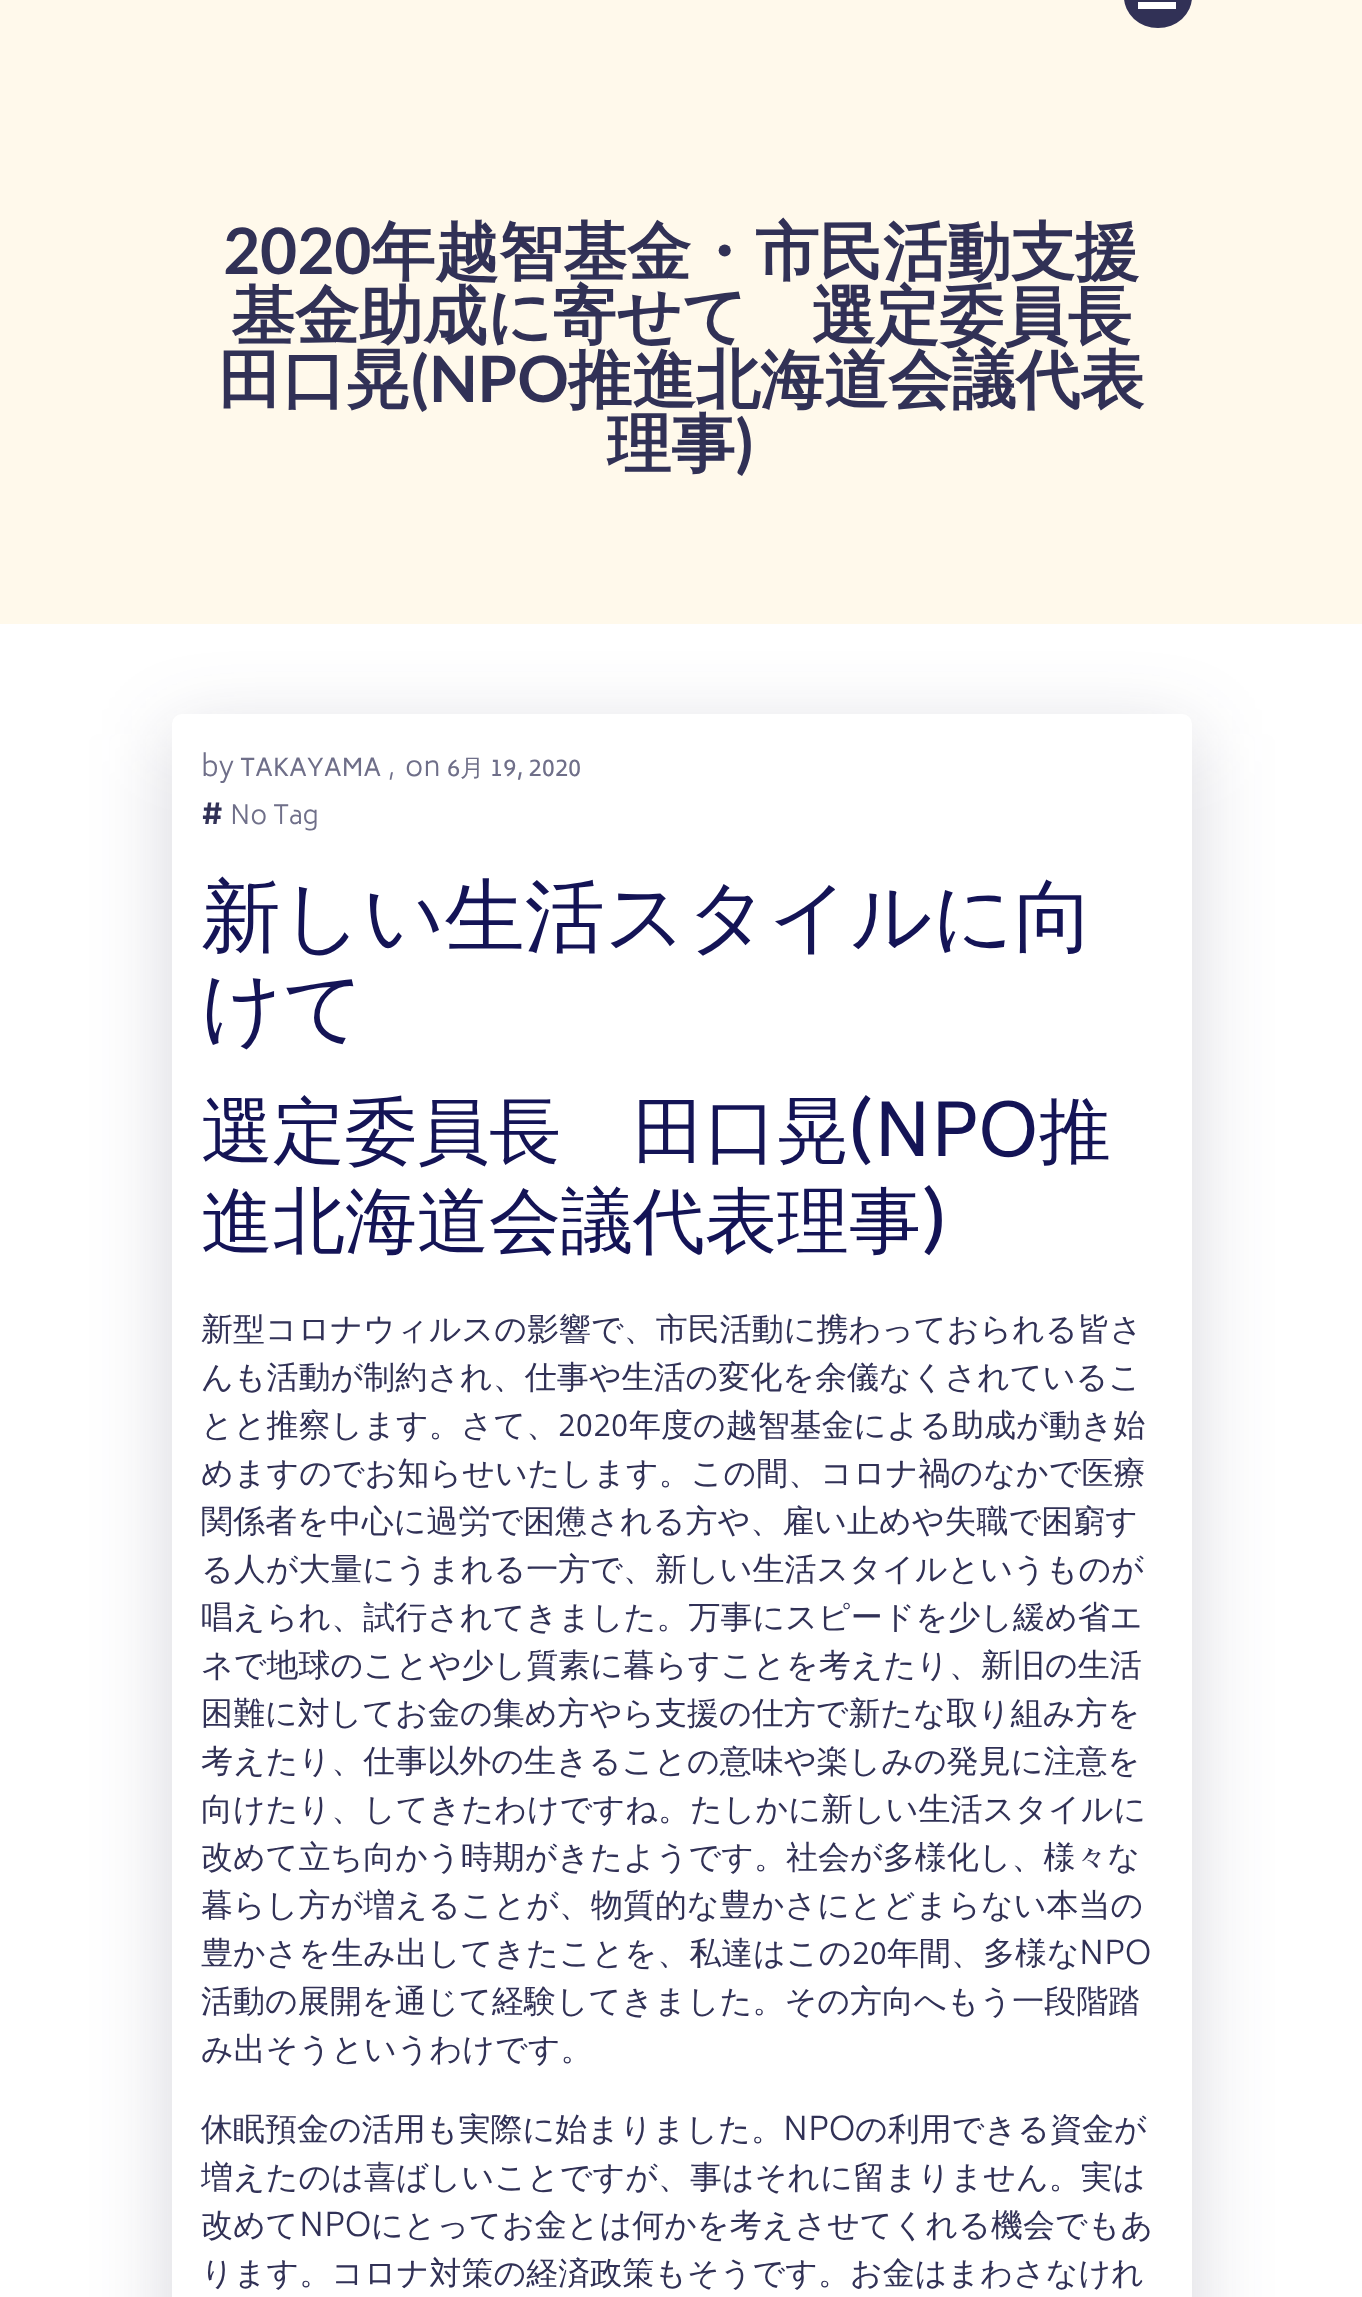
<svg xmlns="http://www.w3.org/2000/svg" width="1362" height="2297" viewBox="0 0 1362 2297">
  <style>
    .t1 { font: bold 64px Lato; fill: #313156; }
    .t2 { font: bold 64px WenQuanYi Zen Hei; fill: #313156; }
    .t3 { font: 300 28px Biryani; fill: #6f6f89; }
    .t4 { font: 24px Biryani; fill: #6f6f89; }
    .t5 { font: 300 24px Biryani; fill: #6f6f89; }
    .t6 { font: 500 24px WenQuanYi Zen Hei; fill: #6f6f89; }
    .t7 { font: 600 32px Biryani; fill: #313156; }
    .t8 { font: 300 26px Biryani; fill: #6f6f89; }
    .t9 { font: 500 80px WenQuanYi Zen Hei; fill: #141456; }
    .t10 { font: 500 72px WenQuanYi Zen Hei; fill: #141456; }
    .t11 { font: 72px Biryani; fill: #141456; }
    .t12 { font: 500 32px WenQuanYi Zen Hei; fill: #313156; }
    .t13 { font: 300 32px Biryani; fill: #313156; }
  </style>
  <rect width="100%" height="100%" fill="#fff"/>
  <rect x="0" y="0" width="1362" height="624" fill="#fff9eb"/>
  <rect x="1124" y="-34" width="68" height="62" rx="34" fill="#313156"/>
  <rect x="1138" y="2" width="38" height="7" fill="#fff"/>
  <text x="223" y="274" class="t1">2020</text>
  <text x="371" y="274" class="t2">年越智基金・市民活動支援</text>
  <text x="231" y="338" class="t2">基金助成に寄せて　選定委員長</text>
  <text x="218" y="402" class="t2">田口晃</text>
  <text x="410" y="402" class="t1">(NPO</text>
  <text x="568" y="402" class="t2">推進北海道会議代表</text>
  <text x="607" y="466" class="t2">理事</text>
  <text x="735" y="466" class="t1">)</text>
  <rect x="172" y="734" width="1020" height="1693" rx="10" fill="#31315633" filter="blur(40px)"/>
  <rect x="172" y="714" width="1020" height="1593" rx="10" fill="#fff"/>
  <text x="201" y="776" class="t3">by</text>
  <text x="240" y="776" class="t4">TAKAYAMA</text>
  <text x="388" y="776" class="t5">,</text>
  <text x="405" y="776" class="t3">on</text>
  <text x="447" y="776" class="t4">6</text>
  <text x="460" y="776" class="t6">月</text>
  <text x="490" y="776" class="t4">19, 2020</text>
  <text x="201" y="824" class="t7">#</text>
  <text x="230" y="824" class="t8">No Tag</text>
  <text x="201" y="944" class="t9">新しい生活スタイルに向</text>
  <text x="201" y="1035" class="t9">けて</text>
  <text x="201" y="1156" class="t10">選定委員長　田口晃</text>
  <text x="849" y="1156" class="t11">(NPO</text>
  <text x="1039" y="1156" class="t10">推</text>
  <text x="201" y="1246" class="t10">進北海道会議代表理事</text>
  <text x="921" y="1246" class="t11">)</text>
  <text x="201" y="1340" class="t12">新型コロナウィルスの影響で、市民活動に携わっておられる皆さ</text>
  <text x="201" y="1388" class="t12">んも活動が制約され、仕事や生活の変化を余儀なくされているこ</text>
  <text x="201" y="1436" class="t12">とと推察します。さて、</text>
  <text x="558" y="1436" class="t13">2020</text>
  <text x="629" y="1436" class="t12">年度の越智基金による助成が動き始</text>
  <text x="201" y="1484" class="t12">めますのでお知らせいたします。この間、コロナ禍のなかで医療</text>
  <text x="201" y="1532" class="t12">関係者を中心に過労で困憊される方や、雇い止めや失職で困窮す</text>
  <text x="201" y="1580" class="t12">る人が大量にうまれる一方で、新しい生活スタイルというものが</text>
  <text x="201" y="1628" class="t12">唱えられ、試行されてきました。万事にスピードを少し緩め省エ</text>
  <text x="201" y="1676" class="t12">ネで地球のことや少し質素に暮らすことを考えたり、新旧の生活</text>
  <text x="201" y="1724" class="t12">困難に対してお金の集め方やら支援の仕方で新たな取り組み方を</text>
  <text x="201" y="1772" class="t12">考えたり、仕事以外の生きることの意味や楽しみの発見に注意を</text>
  <text x="201" y="1820" class="t12">向けたり、してきたわけですね。たしかに新しい生活スタイルに</text>
  <text x="201" y="1868" class="t12">改めて立ち向かう時期がきたようです。社会が多様化し、様々な</text>
  <text x="201" y="1916" class="t12">暮らし方が増えることが、物質的な豊かさにとどまらない本当の</text>
  <text x="201" y="1964" class="t12">豊かさを生み出してきたことを、私達はこの</text>
  <text x="852" y="1964" class="t13">20</text>
  <text x="887" y="1964" class="t12">年間、多様な</text>
  <text x="1079" y="1964" class="t13">NPO</text>
  <text x="201" y="2012" class="t12">活動の展開を通じて経験してきました。その方向へもう一段階踏</text>
  <text x="201" y="2060" class="t12">み出そうというわけです。</text>
  <text x="201" y="2140" class="t12">休眠預金の活用も実際に始まりました。</text>
  <text x="783" y="2140" class="t13">NPO</text>
  <text x="855" y="2140" class="t12">の利用できる資金が</text>
  <text x="201" y="2188" class="t12">増えたのは喜ばしいことですが、事はそれに留まりません。実は</text>
  <text x="201" y="2236" class="t12">改めて</text>
  <text x="299" y="2236" class="t13">NPO</text>
  <text x="371" y="2236" class="t12">にとってお金とは何かを考えさせてくれる機会でもあ</text>
  <text x="201" y="2284" class="t12">ります。コロナ対策の経済政策もそうです。お金はまわさなけれ</text>
</svg>
